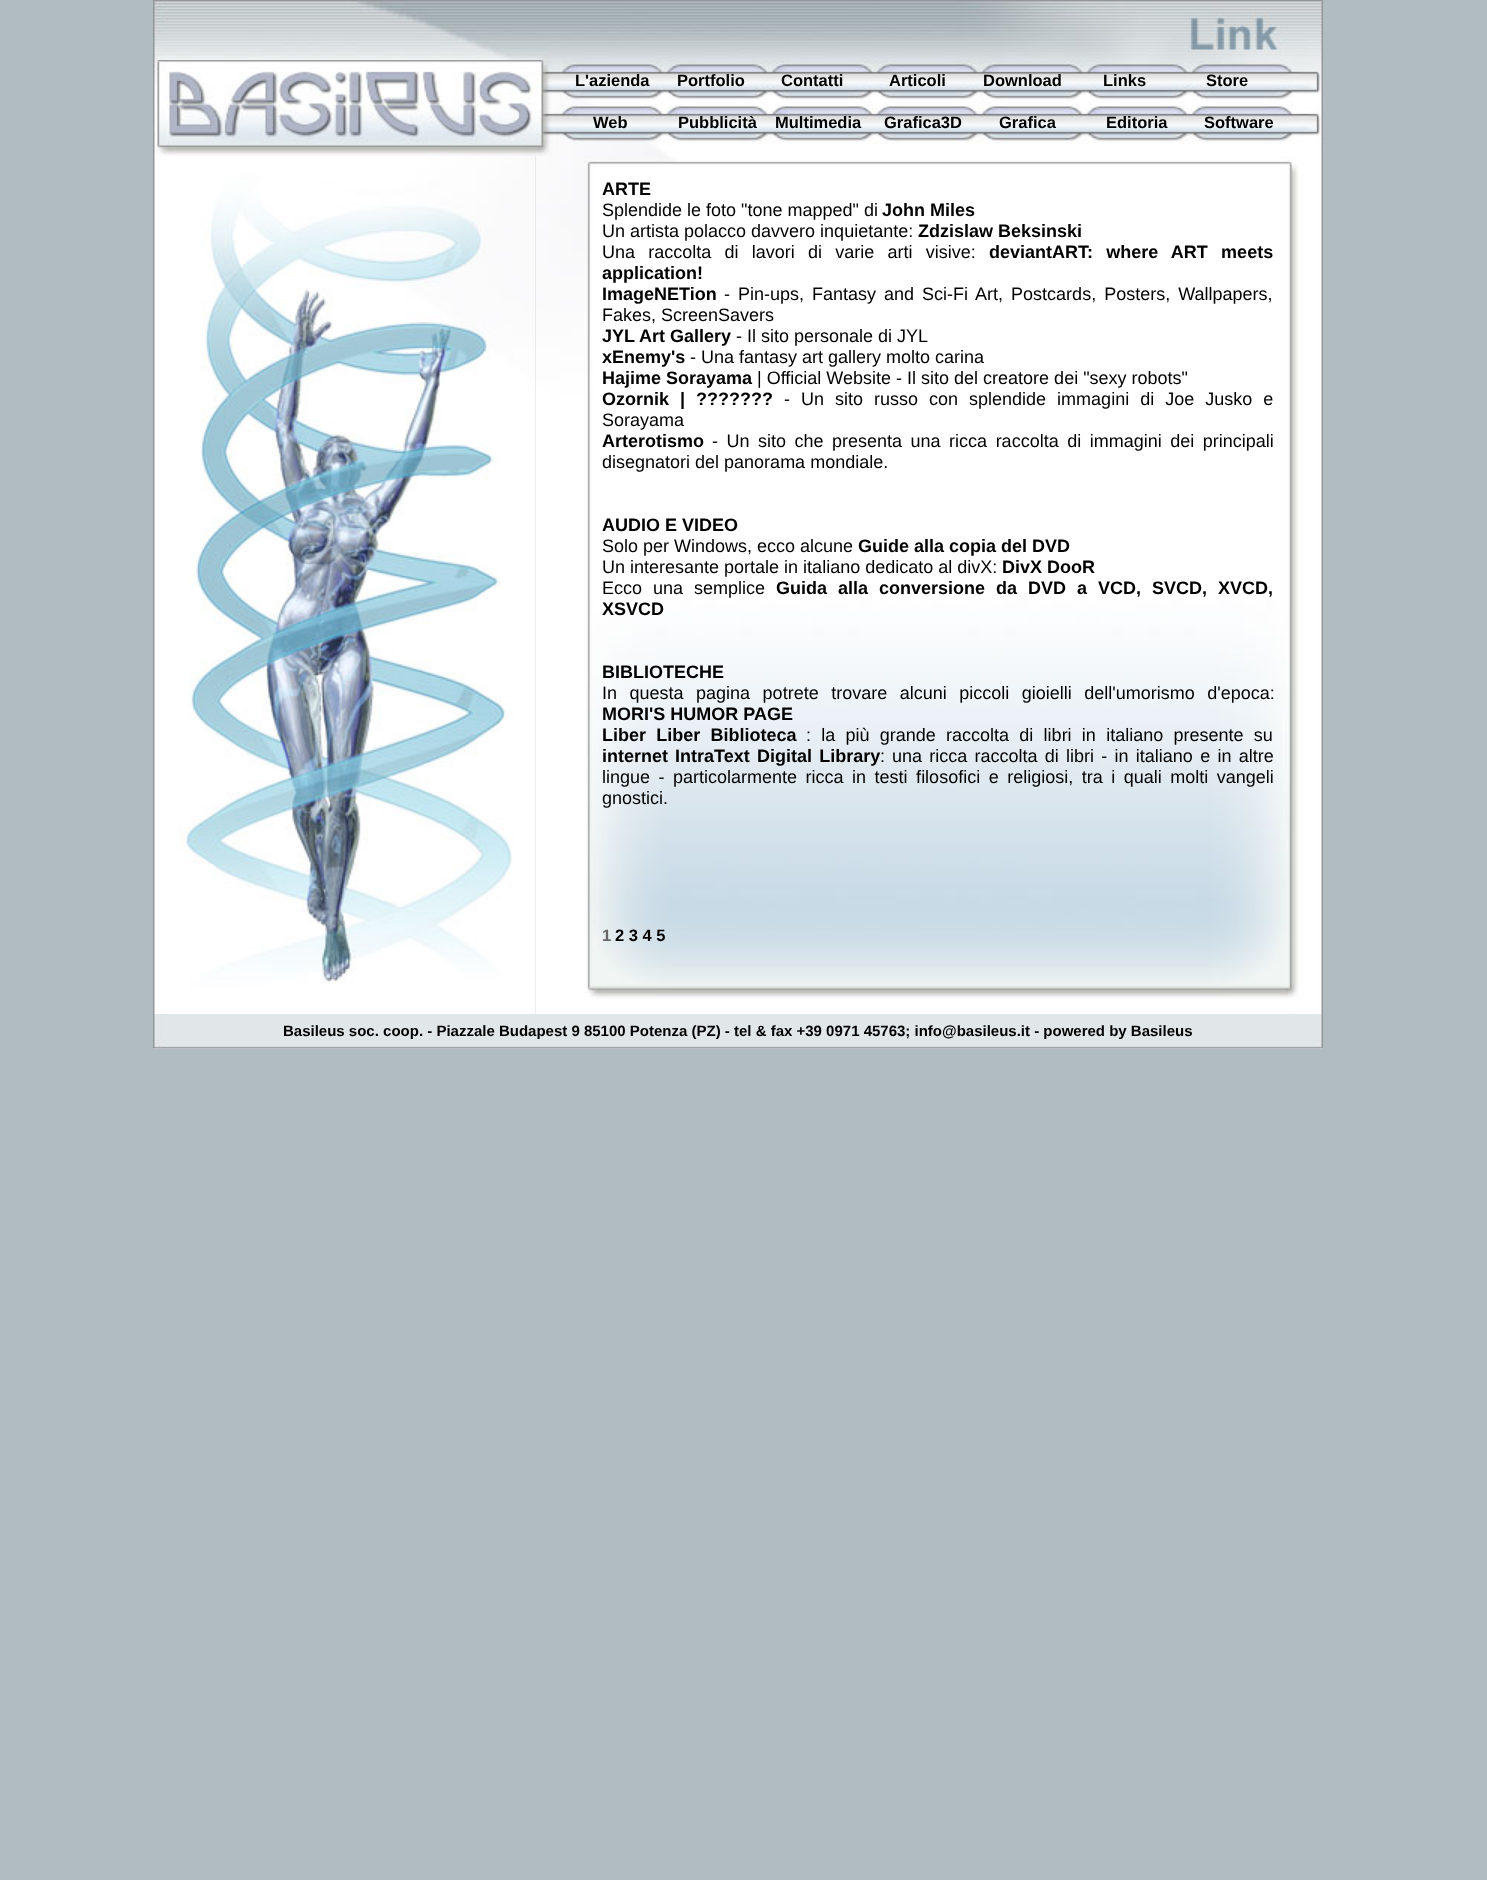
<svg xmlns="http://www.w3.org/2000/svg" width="1487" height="1880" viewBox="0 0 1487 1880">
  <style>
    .t1 { font: bold 16.5px Liberation Sans; fill: #000; }
    .t2 { font: bold 18px Liberation Sans; fill: #000; }
    .t3 { font: 18px Liberation Sans; fill: #000; }
    .t4 { font: bold 16.5px Liberation Sans; fill: #666; }
    .t5 { font: bold 15px Liberation Sans; fill: #000; }
  </style>
  <rect width="100%" height="100%" fill="#b1bcc0"/>
  <image x="153" y="0" width="1170" height="60" href="images/1.png"/>
  <image x="1188" y="0" width="135" height="54" href="images/2.png"/>
  <image x="153" y="60" width="1170" height="96" href="images/3.png"/>
  <text x="575" y="86" class="t1">L'azienda</text>
  <text x="677" y="86" class="t1">Portfolio</text>
  <text x="781" y="86" class="t1">Contatti</text>
  <text x="889" y="86" class="t1">Articoli</text>
  <text x="983" y="86" class="t1">Download</text>
  <text x="1103" y="86" class="t1">Links</text>
  <text x="1206" y="86" class="t1">Store</text>
  <text x="593" y="128" class="t1">Web</text>
  <text x="678" y="128" class="t1">Pubblicità</text>
  <text x="775" y="128" class="t1">Multimedia</text>
  <text x="884" y="128" class="t1">Grafica3D</text>
  <text x="999" y="128" class="t1">Grafica</text>
  <text x="1106" y="128" class="t1">Editoria</text>
  <text x="1204" y="128" class="t1">Software</text>
  <image x="153" y="156" width="383" height="858" href="images/4.png"/>
  <image x="535" y="156" width="788" height="858" href="images/5.png"/>
  <text x="602" y="195" class="t2">ARTE</text>
  <text x="602" y="216" class="t3">Splendide le foto "tone mapped" di</text>
  <text x="882" y="216" class="t2">John Miles</text>
  <text x="602" y="237" class="t3">Un artista polacco davvero inquietante:</text>
  <text x="918" y="237" class="t2">Zdzislaw Beksinski</text>
  <text x="602" y="258" word-spacing="8.25" class="t3">Una raccolta di lavori di varie arti visive:</text>
  <text x="989" y="258" word-spacing="8.25" class="t2">deviantART: where ART meets</text>
  <text x="602" y="279" class="t2">application!</text>
  <text x="602" y="300" class="t2">ImageNETion</text>
  <text x="724" y="300" word-spacing="3" class="t3">- Pin-ups, Fantasy and Sci-Fi Art, Postcards, Posters, Wallpapers,</text>
  <text x="602" y="321" class="t3">Fakes, ScreenSavers</text>
  <text x="602" y="342" class="t2">JYL Art Gallery</text>
  <text x="736" y="342" class="t3">- Il sito personale di JYL</text>
  <text x="602" y="363" class="t2">xEnemy's</text>
  <text x="690" y="363" class="t3">- Una fantasy art gallery molto carina</text>
  <text x="602" y="384" class="t2">Hajime Sorayama</text>
  <text x="757" y="384" class="t3">| Official Website - Il sito del creatore dei "sexy robots"</text>
  <text x="602" y="405" word-spacing="6" class="t2">Ozornik | ???????</text>
  <text x="784" y="405" word-spacing="6" class="t3">- Un sito russo con splendide immagini di Joe Jusko e</text>
  <text x="602" y="426" class="t3">Sorayama</text>
  <text x="602" y="447" class="t2">Arterotismo</text>
  <text x="712" y="447" word-spacing="3.5" class="t3">- Un sito che presenta una ricca raccolta di immagini dei principali</text>
  <text x="602" y="468" class="t3">disegnatori del panorama mondiale.</text>
  <text x="602" y="531" class="t2">AUDIO E VIDEO</text>
  <text x="602" y="552" class="t3">Solo per Windows, ecco alcune</text>
  <text x="858" y="552" class="t2">Guide alla copia del DVD</text>
  <text x="602" y="573" class="t3">Un interesante portale in italiano dedicato al divX:</text>
  <text x="1002" y="573" class="t2">DivX DooR</text>
  <text x="602" y="594" word-spacing="6" class="t3">Ecco una semplice</text>
  <text x="776" y="594" word-spacing="6" class="t2">Guida alla conversione da DVD a VCD, SVCD, XVCD,</text>
  <text x="602" y="615" class="t2">XSVCD</text>
  <text x="602" y="678" class="t2">BIBLIOTECHE</text>
  <text x="602" y="699" word-spacing="7.5" class="t3">In questa pagina potrete trovare alcuni piccoli gioielli dell'umorismo d'epoca:</text>
  <text x="602" y="720" class="t2">MORI'S HUMOR PAGE</text>
  <text x="602" y="741" word-spacing="5.25" class="t2">Liber Liber Biblioteca</text>
  <text x="806" y="741" word-spacing="5.25" class="t3">: la più grande raccolta di libri in italiano presente su</text>
  <text x="602" y="762" class="t2">internet</text>
  <text x="675" y="762" word-spacing="2.25" class="t2">IntraText Digital Library</text>
  <text x="880" y="762" class="t3">:</text>
  <text x="892" y="762" word-spacing="2.25" class="t3">una ricca raccolta di libri - in italiano e in altre</text>
  <text x="602" y="783" word-spacing="3.5" class="t3">lingue - particolarmente ricca in testi filosofici e religiosi, tra i quali molti vangeli</text>
  <text x="602" y="804" class="t3">gnostici.</text>
  <text x="602" y="941" class="t4">1</text>
  <text x="615" y="941" class="t1">2 3 4 5</text>
  <rect x="153" y="1048" width="1170" height="1" fill="#e2e7e8"/>
  <image x="153" y="1014" width="1170" height="35" href="images/6.png"/>
  <text x="283" y="1036" class="t5">Basileus soc. coop. - Piazzale Budapest 9 85100 Potenza (PZ) - tel &amp; fax +39 0971 45763; info@basileus.it - powered by Basileus</text>
</svg>
